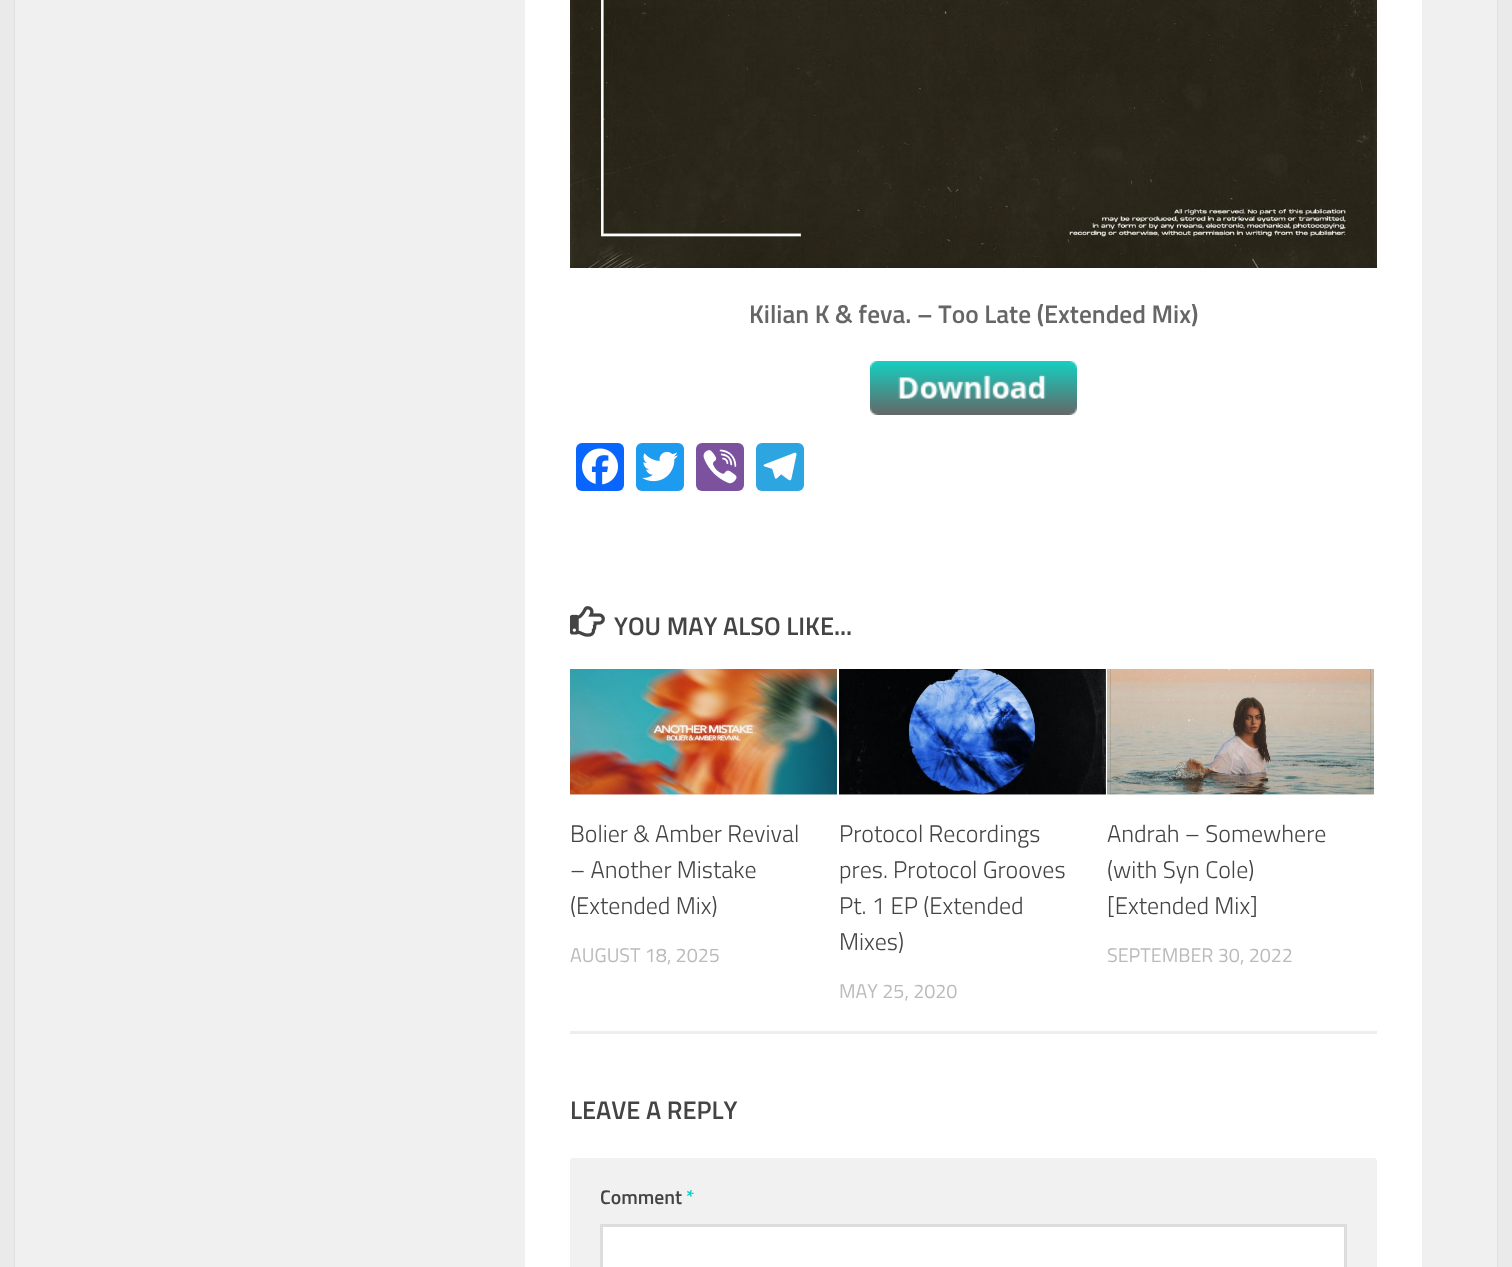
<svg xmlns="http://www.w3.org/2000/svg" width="1512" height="1267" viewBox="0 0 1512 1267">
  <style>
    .t1 { font: 600 25.4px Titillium; fill: #666; }
    .t2 { font: 600 25.4px Titillium; fill: #444; }
    .t3 { font: 300 24px Titillium; fill: #444; }
    .t4 { font: 19.75px Titillium; fill: #bbb; }
    .t5 { font: 600 19.75px Titillium; fill: #444; }
    .t6 { font: 600 19.75px Titillium; fill: #16cfc1; }
  </style>
  <rect width="100%" height="100%" fill="#eaeaea"/>
  <rect x="15" y="-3" width="1482" height="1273" fill="#0000001a" filter="blur(1px)"/>
  <rect x="525" y="0" width="897" height="1267" fill="#fff"/>
  <rect x="15" y="0" width="510" height="1267" fill="#f0f0f0"/>
  <image x="570" y="0" width="807" height="268" href="images/1.png"/>
  <text x="749" y="323" class="t1">Kilian K &amp; feva. – Too Late (Extended Mix)</text>
  <image x="870" y="361" width="207" height="54" href="images/2.png"/>
  <rect x="576" y="443" width="48" height="48" rx="6" fill="#0866ff"/>
  <image x="582" y="448" width="36" height="37" href="images/3.png"/>
  <rect x="636" y="443" width="48" height="48" rx="6" fill="#1d9bf0"/>
  <image x="642" y="451" width="36" height="31" href="images/4.png"/>
  <rect x="696" y="443" width="48" height="48" rx="6" fill="#7c529e"/>
  <image x="703" y="449" width="34" height="35" href="images/5.png"/>
  <rect x="756" y="443" width="48" height="48" rx="6" fill="#2ca5e0"/>
  <image x="763" y="452" width="34" height="29" href="images/6.png"/>
  <image x="570" y="606" width="35" height="31" href="images/7.png"/>
  <text x="614" y="635" class="t2">YOU MAY ALSO LIKE...</text>
  <rect x="570" y="1031" width="807" height="3" fill="#eee"/>
  <image x="570" y="669" width="267" height="126" href="images/8.png"/>
  <text x="570" y="842" class="t3">Bolier &amp; Amber Revival</text>
  <text x="570" y="878" class="t3">– Another Mistake</text>
  <text x="570" y="914" class="t3">(Extended Mix)</text>
  <text x="570" y="962" class="t4">AUGUST 18, 2025</text>
  <image x="839" y="669" width="267" height="126" href="images/9.png"/>
  <text x="839" y="842" class="t3">Protocol Recordings</text>
  <text x="839" y="878" class="t3">pres. Protocol Grooves</text>
  <text x="839" y="914" class="t3">Pt. 1 EP (Extended</text>
  <text x="839" y="950" class="t3">Mixes)</text>
  <text x="839" y="998" class="t4">MAY 25, 2020</text>
  <image x="1107" y="669" width="267" height="126" href="images/10.png"/>
  <text x="1107" y="842" class="t3">Andrah – Somewhere</text>
  <text x="1107" y="878" class="t3">(with Syn Cole)</text>
  <text x="1107" y="914" class="t3">[Extended Mix]</text>
  <text x="1107" y="962" class="t4">SEPTEMBER 30, 2022</text>
  <text x="570" y="1119" class="t2">LEAVE A REPLY</text>
  <rect x="570" y="1158" width="807" height="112" rx="3" fill="#f1f1f1"/>
  <text x="600" y="1204" class="t5">Comment</text>
  <text x="686" y="1204" class="t6">*</text>
  <rect x="601.5" y="1225.5" width="744" height="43" fill="#fff" stroke="#ddd" stroke-width="3"/>
  <rect x="1422" y="0" width="75" height="1267" fill="#f0f0f0"/>
</svg>
